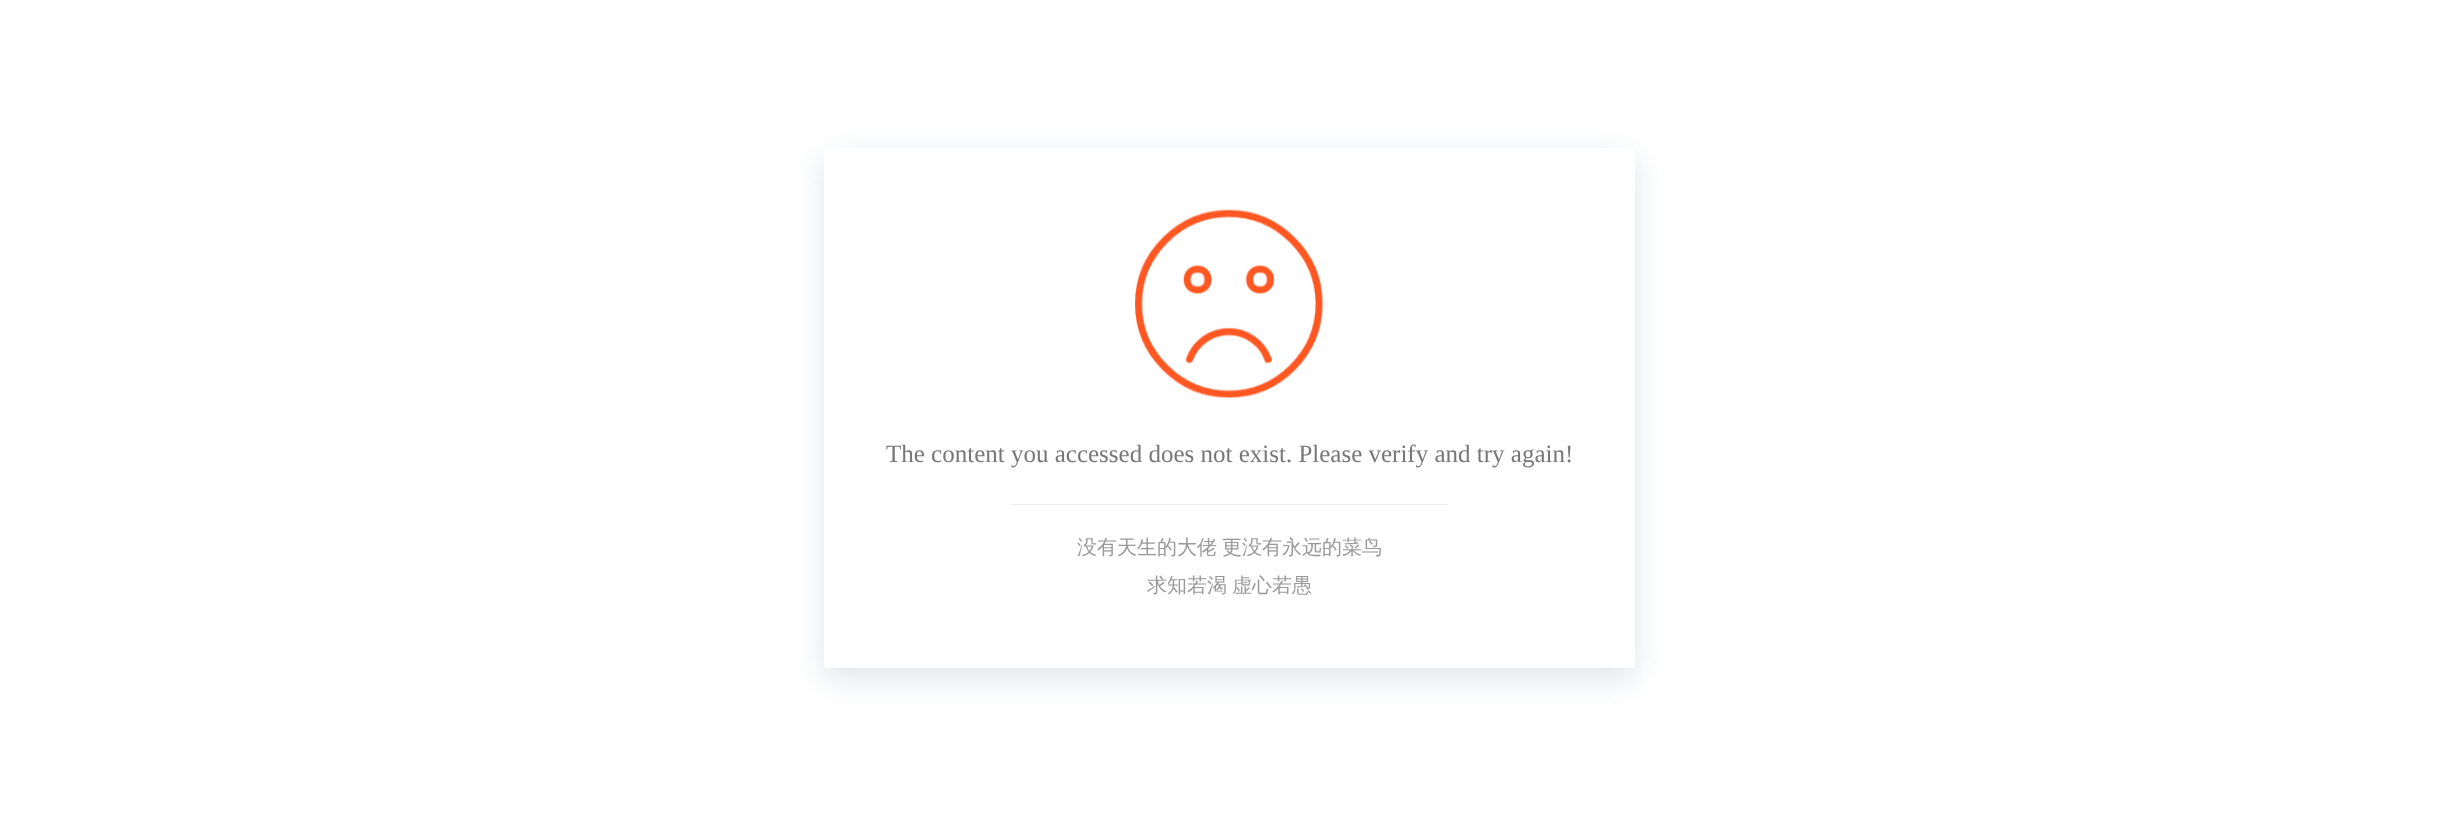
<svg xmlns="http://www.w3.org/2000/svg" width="2458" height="813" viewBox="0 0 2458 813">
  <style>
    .t1 { font: 25px Liberation Serif; fill: #777; }
    .t2 { font: 500 20px WenQuanYi Zen Hei; fill: #999; }
  </style>
  <rect width="100%" height="100%" fill="#fff"/>
  <rect x="824" y="158" width="811" height="520" rx="2.5" fill="#a3b1bf59" filter="blur(15px)"/>
  <rect x="824" y="148" width="811" height="520" rx="2.5" fill="#fff"/>
  <image x="1135" y="209" width="188" height="189" href="images/1.png"/>
  <text x="886" y="462" class="t1">The content you accessed does not exist. Please verify and try again!</text>
  <rect x="1010" y="504" width="438" height="1" fill="#eee"/>
  <text x="1077" y="554" word-spacing="-1" class="t2">没有天生的大佬 更没有永远的菜鸟</text>
  <text x="1147" y="592" word-spacing="-1" class="t2">求知若渴 虚心若愚</text>
</svg>
